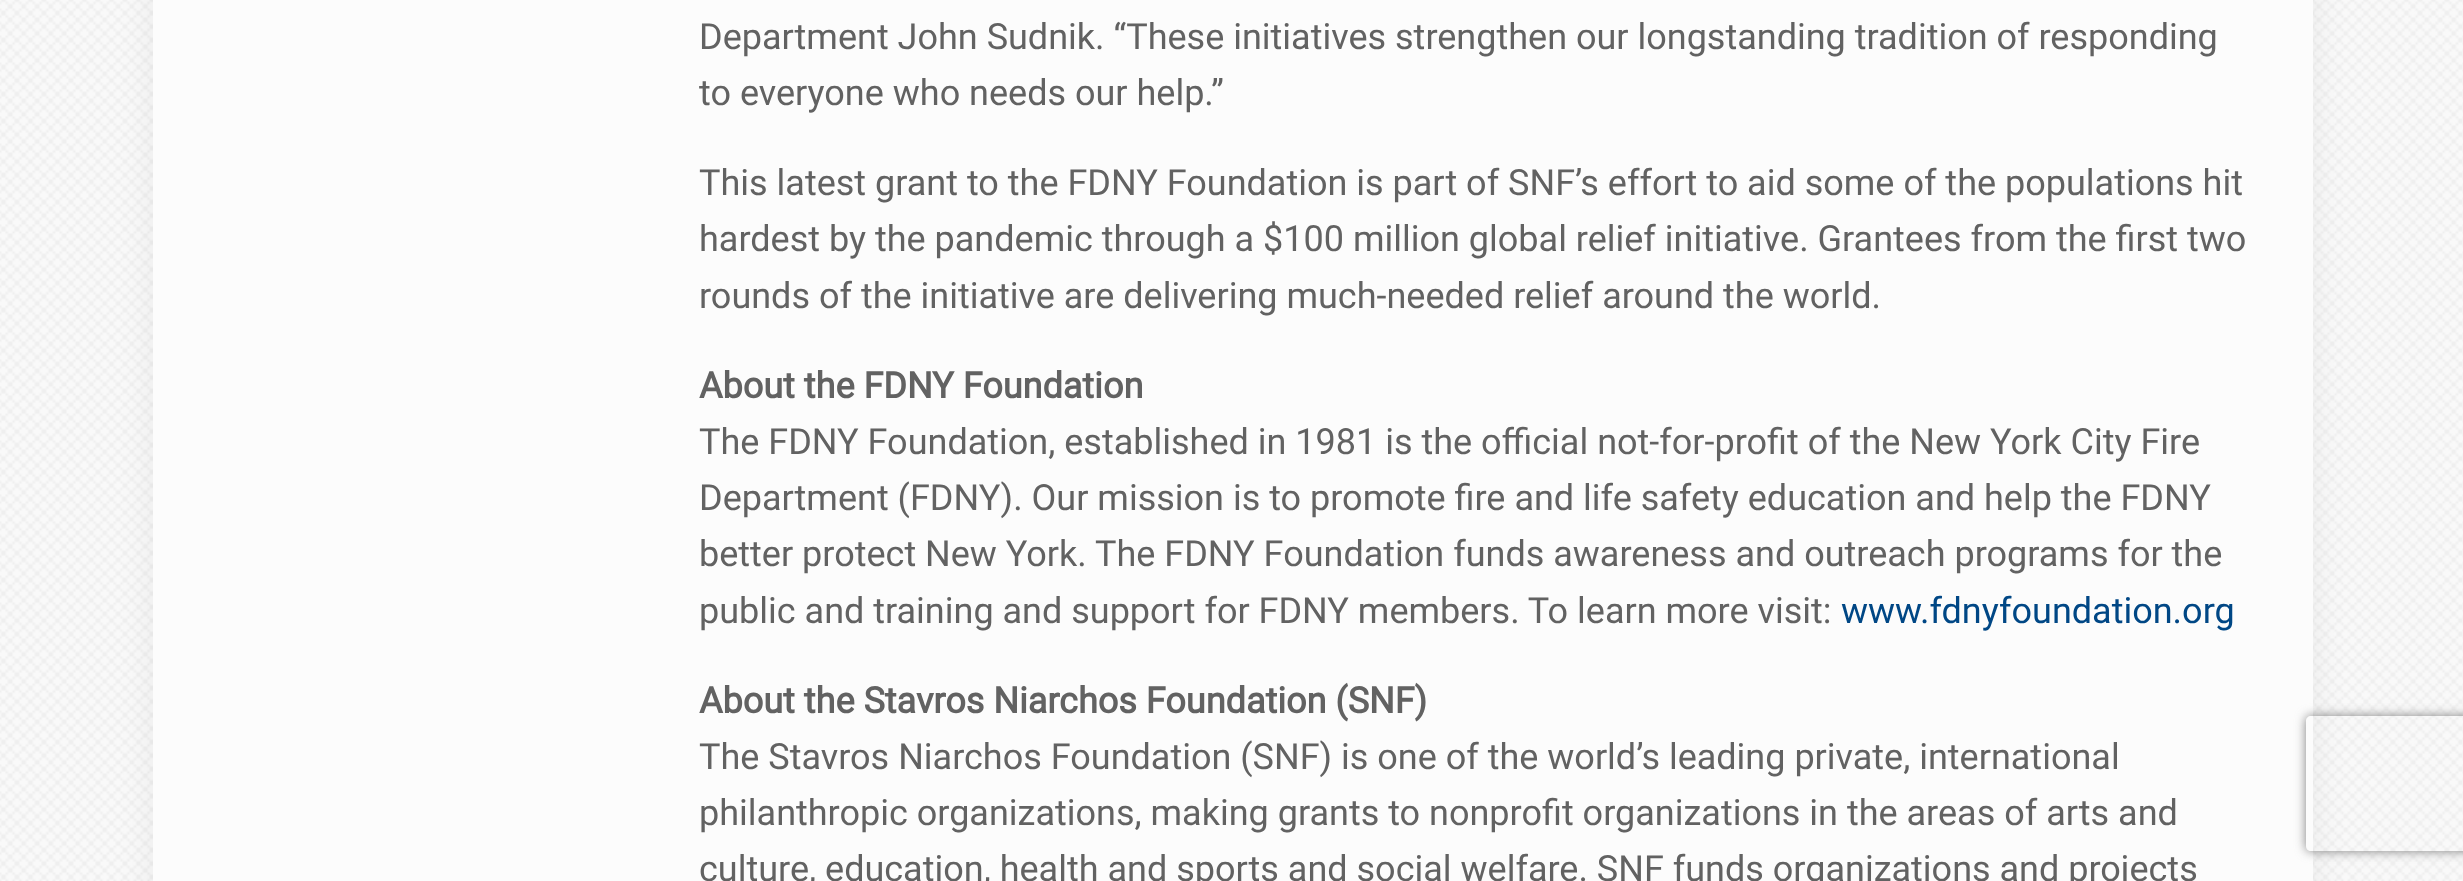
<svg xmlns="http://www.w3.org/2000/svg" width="2463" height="881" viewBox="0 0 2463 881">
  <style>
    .t1 { font: 36px Roboto; fill: #626262; }
    .t2 { font: bold 36px Roboto; fill: #626262; }
    .t3 { font: 36px Roboto; fill: #004785; }
  </style>
  <defs>
    <clipPath id="clip1"><path d="M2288 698H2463V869H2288ZM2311 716H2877C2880 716 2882 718 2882 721V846C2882 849 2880 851 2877 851H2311C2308 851 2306 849 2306 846V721C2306 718 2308 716 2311 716Z" clip-rule="evenodd"/></clipPath>
  </defs>
  <rect width="100%" height="100%" fill="#fff"/>
  <image x="0" y="0" width="2463" height="881" href="images/1.png"/>
  <rect x="153" y="-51" width="2160" height="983" fill="#0000000f" filter="blur(17px)"/>
  <rect x="153" y="0" width="2160" height="881" fill="#fcfcfc"/>
  <text x="699" y="49" class="t1">Department John Sudnik. “These initiatives strengthen our longstanding tradition of responding</text>
  <text x="699" y="105" class="t1">to everyone who needs our help.”</text>
  <text x="699" y="195" class="t1">This latest grant to the FDNY Foundation is part of SNF’s effort to aid some of the populations hit</text>
  <text x="699" y="251" class="t1">hardest by the pandemic through a $100 million global relief initiative. Grantees from the first two</text>
  <text x="699" y="308" class="t1">rounds of the initiative are delivering much-needed relief around the world.</text>
  <text x="699" y="398" class="t2">About the FDNY Foundation</text>
  <text x="699" y="454" class="t1">The FDNY Foundation, established in 1981 is the official not-for-profit of the New York City Fire</text>
  <text x="699" y="510" class="t1">Department (FDNY). Our mission is to promote fire and life safety education and help the FDNY</text>
  <text x="699" y="566" class="t1">better protect New York. The FDNY Foundation funds awareness and outreach programs for the</text>
  <text x="699" y="623" class="t1">public and training and support for FDNY members. To learn more visit:</text>
  <text x="1841" y="623" class="t3">www.fdnyfoundation.org</text>
  <text x="699" y="713" class="t2">About the Stavros Niarchos Foundation (SNF)</text>
  <text x="699" y="769" class="t1">The Stavros Niarchos Foundation (SNF) is one of the world’s leading private, international</text>
  <text x="699" y="825" class="t1">philanthropic organizations, making grants to nonprofit organizations in the areas of arts and</text>
  <text x="699" y="881" class="t1">culture, education, health and sports and social welfare. SNF funds organizations and projects</text>
  <g clip-path="url(#clip1)">
    <rect x="2306" y="716" width="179" height="135" rx="5" fill="#808080" filter="blur(5.5px)"/>
  </g>
</svg>
